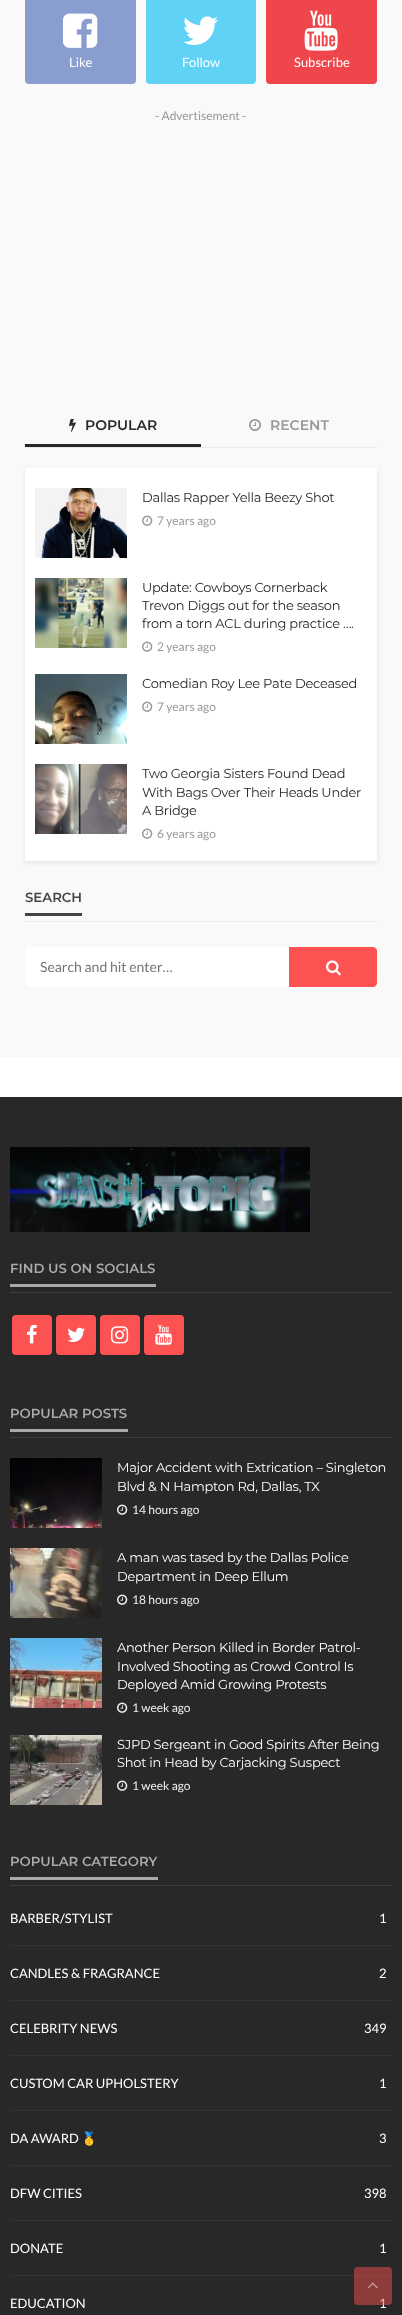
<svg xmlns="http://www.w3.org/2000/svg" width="402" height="2315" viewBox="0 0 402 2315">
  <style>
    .t1 { font: 13px Lato; fill: #fff; }
    .t2 { font: 12px Lato; fill: #999; }
    .t3 { font: 600 14px Montserrat; fill: #282828; }
    .t4 { font: 600 14px Montserrat; fill: #999; }
    .t5 { font: 13px Montserrat; letter-spacing: -0.25px; fill: #282828; }
    .t6 { font: 600 13.25px Montserrat; fill: #444; }
    .t7 { font: 14px Lato; fill: #757575; }
    .t8 { font: 600 13.25px Montserrat; fill: #aaa; }
    .t9 { font: 13px Montserrat; letter-spacing: -0.25px; fill: #fff; }
    .t10 { font: 12px Lato; fill: #eee; }
    .t11 { font: 13px Noto Color Emoji; fill: #fff; }
  </style>
  <rect width="100%" height="100%" fill="#f9f9f9"/>
  <rect x="25" y="-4" width="111" height="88" rx="4" fill="#899dce"/>
  <image x="63" y="13" width="35" height="35" href="images/1.png"/>
  <text x="69" y="67" class="t1">Like</text>
  <rect x="146" y="-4" width="110" height="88" rx="4" fill="#60d2f5"/>
  <image x="183" y="16" width="35" height="29" href="images/2.png"/>
  <text x="182" y="67" class="t1">Follow</text>
  <rect x="266" y="-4" width="111" height="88" rx="4" fill="#ef464b"/>
  <image x="304" y="10" width="34" height="41" href="images/3.png"/>
  <text x="294" y="67" class="t1">Subscribe</text>
  <text x="155" y="120" class="t2">- Advertisement -</text>
  <rect x="25" y="447" width="352" height="1" fill="#eaeaea"/>
  <rect x="25" y="444" width="176" height="3" fill="#282828"/>
  <image x="69" y="419" width="7" height="13" href="images/4.png"/>
  <text x="85" y="430" class="t3">POPULAR</text>
  <image x="249" y="419" width="12" height="12" href="images/5.png"/>
  <text x="270" y="430" class="t4">RECENT</text>
  <rect x="25" y="470" width="352" height="393" fill="#1c1c1c1a" filter="blur(2.5px)"/>
  <rect x="25" y="468" width="352" height="393" fill="#fff"/>
  <image x="35" y="488" width="92" height="70" href="images/6.png"/>
  <text x="142" y="502" class="t5">Dallas Rapper Yella Beezy Shot</text>
  <image x="142" y="515" width="11" height="11" href="images/7.png"/>
  <text x="157" y="525" class="t2">7 years ago</text>
  <image x="35" y="578" width="92" height="70" href="images/8.png"/>
  <text x="142" y="592" class="t5">Update: Cowboys Cornerback</text>
  <text x="142" y="610" class="t5">Trevon Diggs out for the season</text>
  <text x="142" y="628" class="t5">from a torn ACL during practice ….</text>
  <image x="142" y="641" width="11" height="11" href="images/7.png"/>
  <text x="157" y="651" class="t2">2 years ago</text>
  <image x="35" y="674" width="92" height="70" href="images/9.png"/>
  <text x="142" y="688" class="t5">Comedian Roy Lee Pate Deceased</text>
  <image x="142" y="701" width="11" height="11" href="images/7.png"/>
  <text x="157" y="711" class="t2">7 years ago</text>
  <image x="35" y="764" width="92" height="70" href="images/10.png"/>
  <text x="142" y="778" class="t5">Two Georgia Sisters Found Dead</text>
  <text x="142" y="797" class="t5">With Bags Over Their Heads Under</text>
  <text x="142" y="815" class="t5">A Bridge</text>
  <image x="142" y="828" width="11" height="11" href="images/7.png"/>
  <text x="157" y="838" class="t2">6 years ago</text>
  <rect x="25" y="921" width="352" height="1" fill="#eaeaea"/>
  <rect x="25" y="913" width="57" height="3" fill="#444"/>
  <text x="25" y="902" class="t6">SEARCH</text>
  <path d="M29 947H289V987H29C27 987 25 985 25 983V951C25 949 27 947 29 947Z" fill="#fff"/>
  <text x="40" y="972" class="t7">Search and hit enter…</text>
  <path d="M289 947H373C375 947 377 949 377 951V983C377 985 375 987 373 987H289Z" fill="#fd5252"/>
  <image x="326" y="960" width="15" height="16" href="images/11.png"/>
  <rect x="0" y="1057" width="402" height="40" fill="#fff"/>
  <rect x="0" y="1097" width="402" height="1218" fill="#282828"/>
  <image x="10" y="1147" width="300" height="85" href="images/12.png"/>
  <rect x="10" y="1292" width="382" height="1" fill="#3e3e3e"/>
  <rect x="10" y="1284" width="146" height="3" fill="#aaa"/>
  <text x="10" y="1273" class="t8">FIND US ON SOCIALS</text>
  <rect x="12" y="1315" width="40" height="40" rx="4" fill="#fd5252"/>
  <image x="27" y="1324" width="10" height="20" href="images/13.png"/>
  <rect x="56" y="1315" width="40" height="40" rx="4" fill="#fd5252"/>
  <image x="67" y="1327" width="18" height="15" href="images/14.png"/>
  <rect x="100" y="1315" width="40" height="40" rx="4" fill="#fd5252"/>
  <image x="111" y="1326" width="18" height="18" href="images/15.png"/>
  <rect x="144" y="1315" width="40" height="40" rx="4" fill="#fd5252"/>
  <image x="155" y="1324" width="17" height="21" href="images/16.png"/>
  <rect x="10" y="1437" width="382" height="1" fill="#3e3e3e"/>
  <rect x="10" y="1429" width="118" height="3" fill="#aaa"/>
  <text x="10" y="1418" class="t8">POPULAR POSTS</text>
  <image x="10" y="1458" width="92" height="70" href="images/17.png"/>
  <text x="117" y="1472" class="t9">Major Accident with Extrication – Singleton</text>
  <text x="117" y="1491" class="t9">Blvd &amp; N Hampton Rd, Dallas, TX</text>
  <image x="117" y="1504" width="11" height="11" href="images/18.png"/>
  <text x="132" y="1514" class="t10">14 hours ago</text>
  <image x="10" y="1548" width="92" height="70" href="images/19.png"/>
  <text x="117" y="1562" class="t9">A man was tased by the Dallas Police</text>
  <text x="117" y="1581" class="t9">Department in Deep Ellum</text>
  <image x="117" y="1594" width="11" height="11" href="images/18.png"/>
  <text x="132" y="1604" class="t10">18 hours ago</text>
  <image x="10" y="1638" width="92" height="70" href="images/20.png"/>
  <text x="117" y="1652" class="t9">Another Person Killed in Border Patrol-</text>
  <text x="117" y="1671" class="t9">Involved Shooting as Crowd Control Is</text>
  <text x="117" y="1689" class="t9">Deployed Amid Growing Protests</text>
  <image x="117" y="1702" width="11" height="11" href="images/18.png"/>
  <text x="132" y="1712" class="t10">1 week ago</text>
  <image x="10" y="1735" width="92" height="70" href="images/21.png"/>
  <text x="117" y="1749" class="t9">SJPD Sergeant in Good Spirits After Being</text>
  <text x="117" y="1767" class="t9">Shot in Head by Carjacking Suspect</text>
  <image x="117" y="1780" width="11" height="11" href="images/18.png"/>
  <text x="132" y="1790" class="t10">1 week ago</text>
  <rect x="10" y="1885" width="382" height="1" fill="#3e3e3e"/>
  <rect x="10" y="1877" width="148" height="3" fill="#aaa"/>
  <text x="10" y="1866" class="t8">POPULAR CATEGORY</text>
  <rect x="10" y="1945" width="382" height="1" fill="#333"/>
  <text x="10" y="1923" class="t1">BARBER/STYLIST</text>
  <text x="379" y="1923" class="t1">1</text>
  <rect x="10" y="2000" width="382" height="1" fill="#333"/>
  <text x="10" y="1978" class="t1">CANDLES &amp; FRAGRANCE</text>
  <text x="379" y="1978" class="t1">2</text>
  <rect x="10" y="2055" width="382" height="1" fill="#333"/>
  <text x="10" y="2033" class="t1">CELEBRITY NEWS</text>
  <text x="364" y="2033" class="t1">349</text>
  <rect x="10" y="2110" width="382" height="1" fill="#333"/>
  <text x="10" y="2088" class="t1">CUSTOM CAR UPHOLSTERY</text>
  <text x="379" y="2088" class="t1">1</text>
  <rect x="10" y="2165" width="382" height="1" fill="#333"/>
  <text x="10" y="2143" class="t1">DA AWARD</text>
  <text x="81" y="2143" class="t11">🥇</text>
  <text x="379" y="2143" class="t1">3</text>
  <rect x="10" y="2220" width="382" height="1" fill="#333"/>
  <text x="10" y="2198" class="t1">DFW CITIES</text>
  <text x="364" y="2198" class="t1">398</text>
  <rect x="10" y="2275" width="382" height="1" fill="#333"/>
  <text x="10" y="2253" class="t1">DONATE</text>
  <text x="379" y="2253" class="t1">1</text>
  <text x="10" y="2308" class="t1">EDUCATION</text>
  <text x="379" y="2308" class="t1">1</text>
  <rect x="354" y="2267" width="38" height="38" rx="4" fill="#fd52527a"/>
  <image x="367" y="2282" width="11" height="7" href="images/22.png"/>
</svg>
